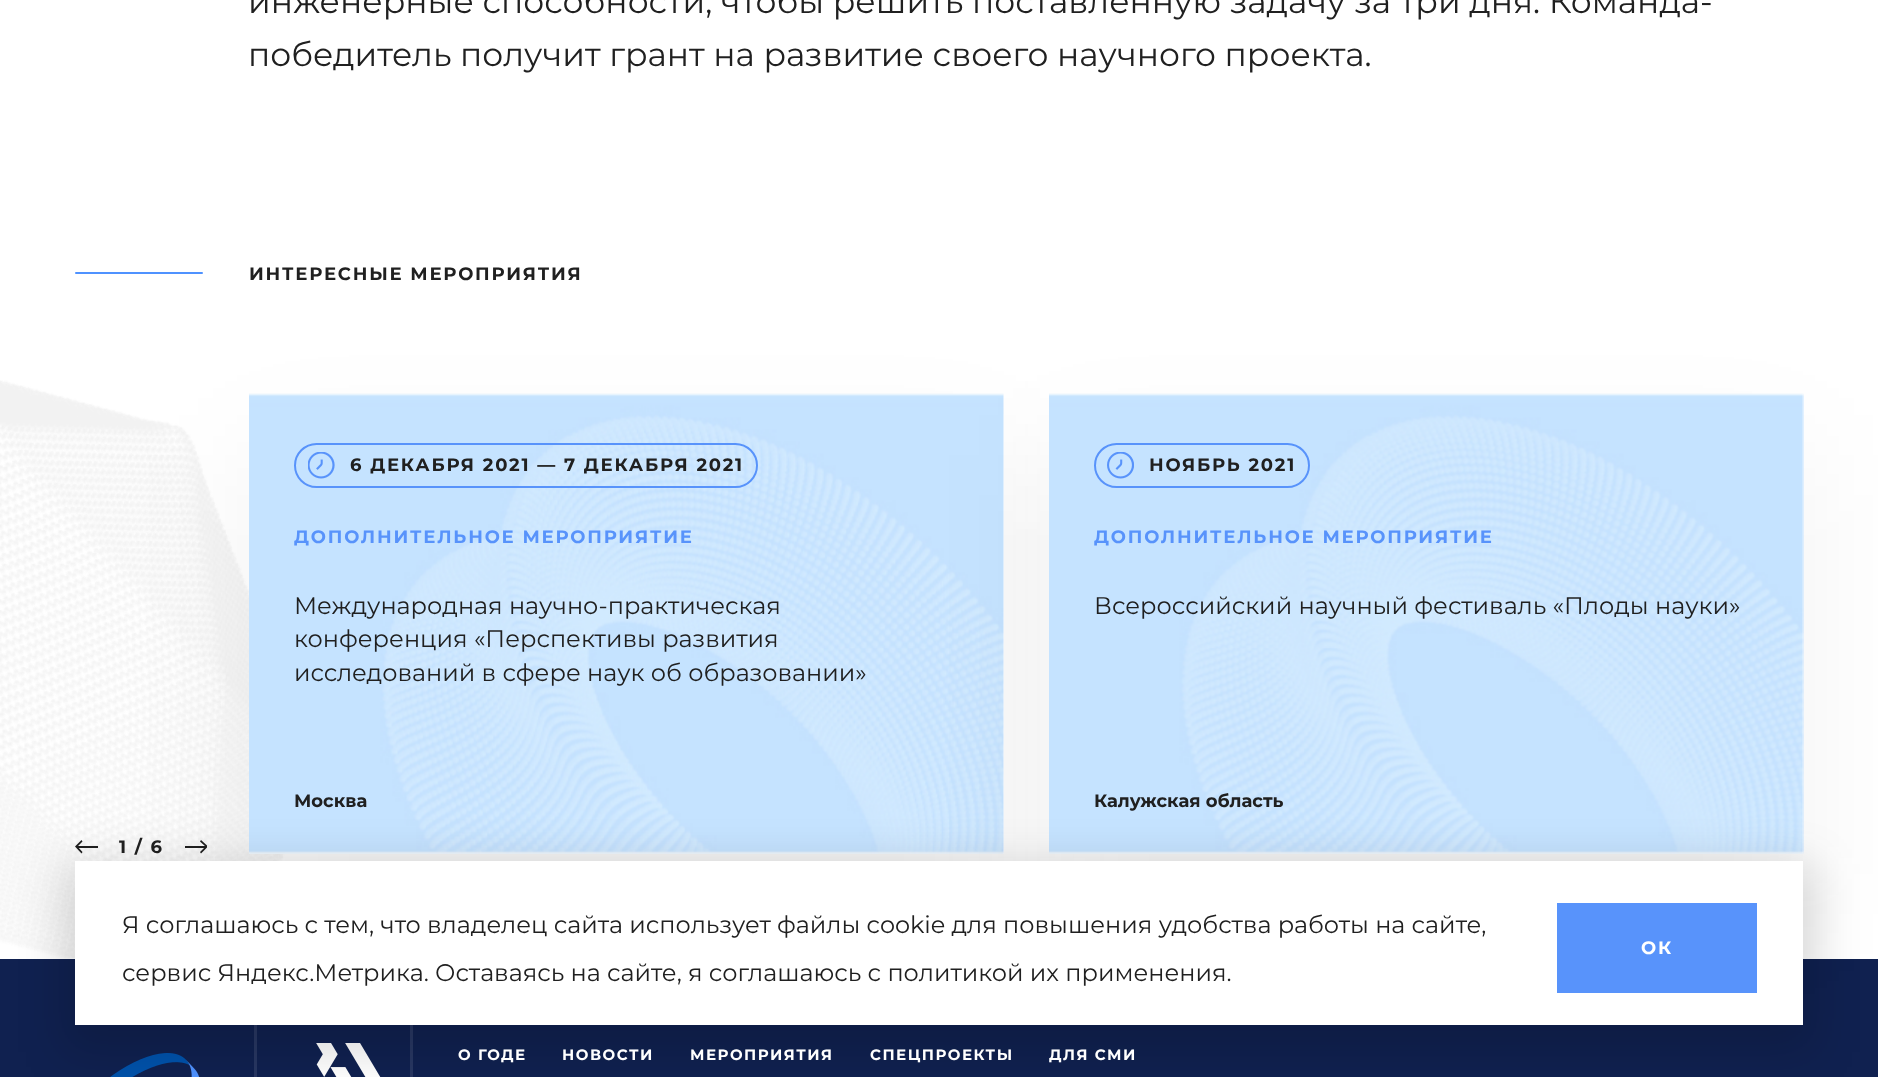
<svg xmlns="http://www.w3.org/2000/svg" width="1878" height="1077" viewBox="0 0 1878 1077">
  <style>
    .t1 { font: 33px Montserrat; fill: #202020; }
    .t2 { font: bold 18px Montserrat; letter-spacing: 1.8px; fill: #202020; }
    .t3 { font: bold 18px Montserrat; letter-spacing: 1.8px; fill: #5893fb; }
    .t4 { font: 24px Montserrat; fill: #202020; }
    .t5 { font: bold 18px Montserrat; fill: #202020; }
    .t6 { font: bold 18px Montserrat; letter-spacing: 1.8px; fill: #fff; }
    .t7 { font: bold 15px Montserrat; letter-spacing: 1.5px; fill: #fff; }
  </style>
  <defs>
    <clipPath id="clip1"><rect x="185" y="839" width="22" height="16"/></clipPath>
  </defs>
  <rect width="100%" height="100%" fill="#fff"/>
  <text x="248" y="13" class="t1">инженерные способности, чтобы решить поставленную задачу за три дня. Команда-</text>
  <text x="248" y="66" class="t1">победитель получит грант на развитие своего научного проекта.</text>
  <rect x="75" y="272" width="128" height="2" rx="1" fill="#4f92ff"/>
  <text x="249" y="280" class="t2">ИНТЕРЕСНЫЕ МЕРОПРИЯТИЯ</text>
  <image x="0" y="380" width="287" height="578" href="images/5.png"/>
  <rect x="0" y="959" width="1878" height="118" fill="#102150"/>
  <rect x="254" y="1025" width="3" height="52" fill="#283762"/>
  <image x="110" y="1053" width="90" height="24" href="images/6.png"/>
  <rect x="410" y="1025" width="3" height="52" fill="#283762"/>
  <image x="316" y="1043" width="65" height="34" href="images/7.png"/>
  <rect x="249" y="455" width="755" height="459" fill="#0000000d" filter="blur(60px)"/>
  <rect x="249" y="414" width="755" height="440" fill="#ffffffcc"/>
  <image x="249" y="393" width="755" height="461" href="images/1.png"/>
  <rect x="295" y="444" width="462" height="43" rx="21.5" fill="none" stroke="#5893fb" stroke-width="2"/>
  <image x="308" y="452" width="27" height="27" href="images/2.png"/>
  <text x="350" y="471" class="t2">6 ДЕКАБРЯ 2021 — 7 ДЕКАБРЯ 2021</text>
  <text x="294" y="543" class="t3">ДОПОЛНИТЕЛЬНОЕ МЕРОПРИЯТИЕ</text>
  <text x="294" y="614" class="t4">Международная научно-практическая</text>
  <text x="294" y="647" class="t4">конференция «Перспективы развития</text>
  <text x="294" y="681" class="t4">исследований в сфере наук об образовании»</text>
  <text x="294" y="807" class="t5">Москва</text>
  <rect x="1049" y="455" width="754" height="459" fill="#0000000d" filter="blur(60px)"/>
  <rect x="1049" y="414" width="754" height="440" fill="#ffffffcc"/>
  <image x="1049" y="393" width="755" height="461" href="images/3.png"/>
  <rect x="1095" y="444" width="214" height="43" rx="21.5" fill="none" stroke="#5893fb" stroke-width="2"/>
  <image x="1107" y="452" width="27" height="27" href="images/4.png"/>
  <text x="1149" y="471" class="t2">НОЯБРЬ 2021</text>
  <text x="1094" y="543" class="t3">ДОПОЛНИТЕЛЬНОЕ МЕРОПРИЯТИЕ</text>
  <text x="1094" y="614" class="t4">Всероссийский научный фестиваль «Плоды науки»</text>
  <text x="1094" y="807" class="t5">Калужская область</text>
  <path d="M81.5 853.5L75 846.5L81.5 840L82.5 841.5L77.5 846.5L82.5 852Z" fill="#202020"/>
  <rect x="77" y="846" width="21" height="2" fill="#202020"/>
  <text x="119" y="853" class="t2">1 / 6</text>
  <g clip-path="url(#clip1)">
    <path d="M201 853.5L200 852L205.5 846.5L200 841.5L201 840L208 846.5Z" fill="#202020"/>
  </g>
  <rect x="185" y="846" width="21" height="2" fill="#202020"/>
  <rect x="63" y="864" width="1752" height="188" fill="#00000026" filter="blur(22.5px)"/>
  <rect x="75" y="861" width="1728" height="164" fill="#fff"/>
  <text x="122" y="933" class="t4">Я соглашаюсь с тем, что владелец сайта использует файлы cookie для повышения удобства работы на сайте,</text>
  <text x="122" y="981" class="t4">сервис Яндекс.Метрика. Оставаясь на сайте, я соглашаюсь с политикой их применения.</text>
  <rect x="1557" y="903" width="200" height="90" fill="#5893fb"/>
  <text x="1641" y="954" class="t6">ОК</text>
  <text x="458" y="1060" class="t7">О ГОДЕ</text>
  <text x="562" y="1060" class="t7">НОВОСТИ</text>
  <text x="690" y="1060" class="t7">МЕРОПРИЯТИЯ</text>
  <text x="870" y="1060" class="t7">СПЕЦПРОЕКТЫ</text>
  <text x="1049" y="1060" class="t7">ДЛЯ СМИ</text>
</svg>
